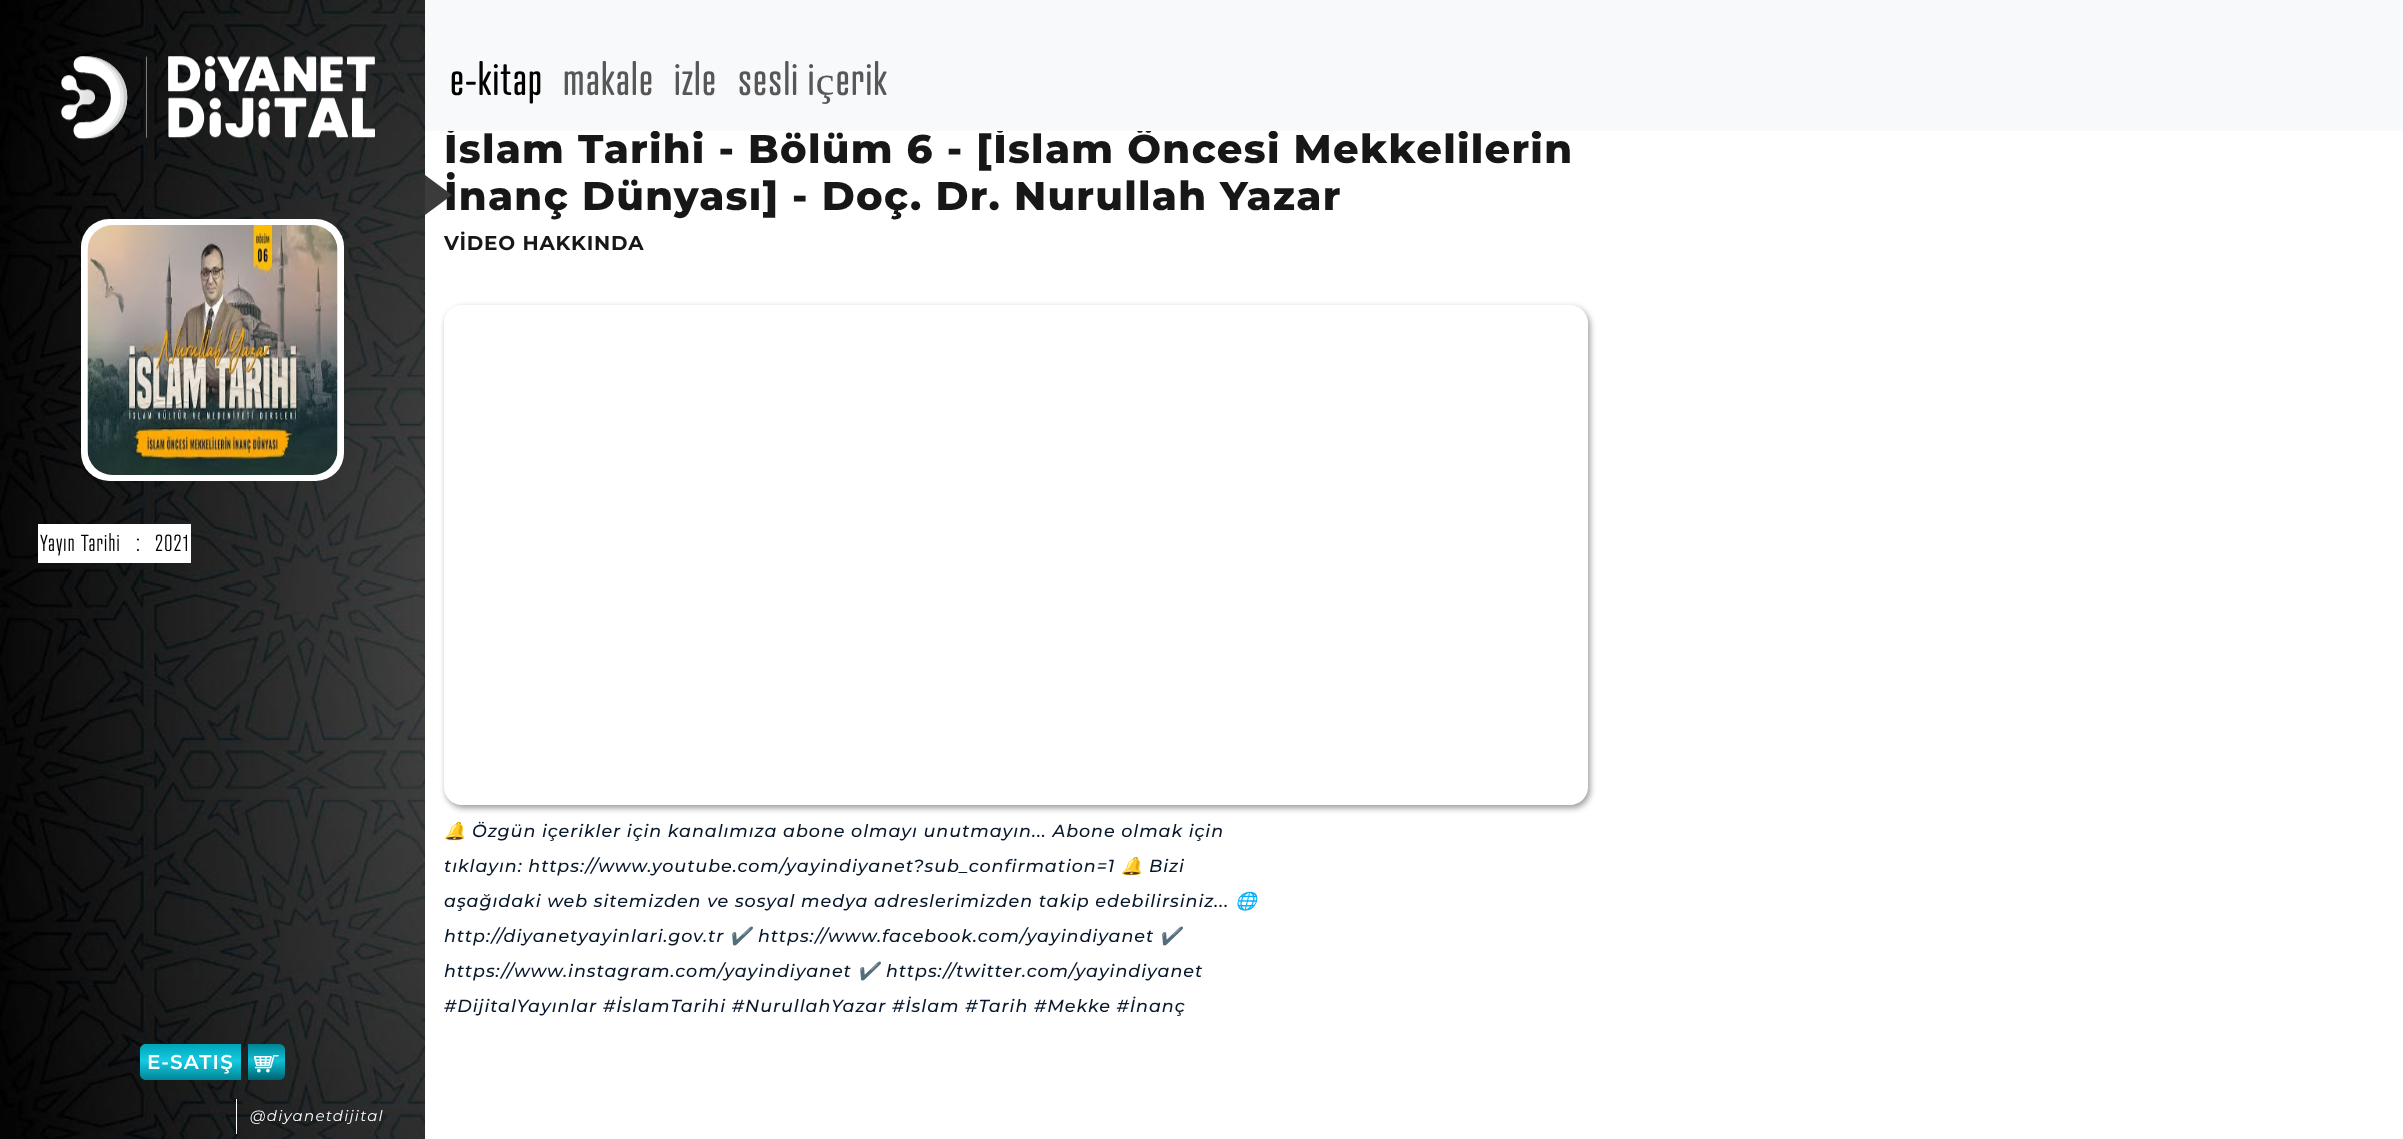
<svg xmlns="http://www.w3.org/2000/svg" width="2403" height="1139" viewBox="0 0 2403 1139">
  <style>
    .t1 { font: 800 40px Montserrat; letter-spacing: 1.25px; fill: #171717; }
    .t2 { font: 42.5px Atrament; letter-spacing: 1.25px; fill: #000; }
    .t3 { font: 42.5px Atrament; letter-spacing: 1.25px; fill: #575758; }
    .t4 { font: 300 22.5px Atrament; letter-spacing: 1.25px; fill: #000; }
    .t5 { font: 600 20px Montserrat; letter-spacing: 1.25px; fill: #fff; }
    .t6 { font: italic 15px Montserrat; letter-spacing: 1.25px; fill: #fff; }
    .t7 { font: bold 20px Montserrat; letter-spacing: 0.8px; fill: #171717; }
    .t8 { font: italic 17.5px Noto Color Emoji; letter-spacing: 0.95px; fill: #08182b; }
    .t9 { font: italic 500 17.5px Montserrat; letter-spacing: 0.95px; fill: #08182b; }
  </style>
  <defs>
    <linearGradient id="g1" gradientUnits="userSpaceOnUse" x1="452" y1="195" x2="425" y2="195"><stop offset="0" stop-color="#3a3a3a"/><stop offset="1" stop-color="#3c3c3c"/></linearGradient>
    <linearGradient id="g2" gradientUnits="userSpaceOnUse" x1="191" y1="1044" x2="191" y2="1080"><stop offset="0" stop-color="#00a4b7"/><stop offset="0.46" stop-color="#16cae2"/><stop offset="1" stop-color="#008697"/></linearGradient>
    <linearGradient id="g3" gradientUnits="userSpaceOnUse" x1="266" y1="1044" x2="266" y2="1080"><stop offset="0" stop-color="#008392"/><stop offset="0.46" stop-color="#10c0d6"/><stop offset="1" stop-color="#00616e"/></linearGradient>
    <clipPath id="clip1"><path d="M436 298H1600V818H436ZM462 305H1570C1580 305 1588 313 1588 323V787C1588 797 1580 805 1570 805H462C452 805 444 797 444 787V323C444 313 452 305 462 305Z" clip-rule="evenodd"/></clipPath>
    <clipPath id="clip2"><rect x="444" y="814" width="816" height="210"/></clipPath>
  </defs>
  <rect width="100%" height="100%" fill="#fff"/>
  <text x="444" y="163" class="t1">İslam Tarihi - Bölüm 6 - [İslam Öncesi Mekkelilerin</text>
  <rect x="425" y="0" width="1978" height="131" fill="#f8f9fa"/>
  <text x="450" y="95" class="t2">e-kitap</text>
  <text x="563" y="95" class="t3">makale</text>
  <text x="674" y="95" class="t3">izle</text>
  <text x="738" y="95" word-spacing="-1" class="t3">sesli içerik</text>
  <image x="0" y="0" width="425" height="1139" href="images/1.png"/>
  <image x="61" y="56" width="314" height="84" href="images/2.png"/>
  <text x="444" y="210" class="t1">İnanç Dünyası] - Doç. Dr. Nurullah Yazar</text>
  <path d="M452 195L425 215V175Z" fill="url(#g1)"/>
  <rect x="81" y="219" width="263" height="262" rx="28" fill="#fff"/>
  <image x="87" y="225" width="251" height="250" href="images/3.png"/>
  <rect x="38" y="524" width="153" height="39" fill="#fff"/>
  <text x="40" y="551" class="t4">Yayın Tarihi</text>
  <text x="136" y="551" class="t4">:</text>
  <text x="155" y="551" class="t4">2021</text>
  <path d="M146 1044H241V1080H146C142.5 1080 140 1077.5 140 1074V1050C140 1046.5 142.5 1044 146 1044Z" fill="url(#g2)"/>
  <text x="147" y="1069" class="t5">E-SATIŞ</text>
  <path d="M248 1044H279C282.5 1044 285 1046.5 285 1050V1074C285 1077.5 282.5 1080 279 1080H248Z" fill="url(#g3)"/>
  <image x="254" y="1055" width="25" height="18" href="images/4.png"/>
  <rect x="236" y="1099" width="1" height="35" fill="#fff"/>
  <text x="250" y="1121" class="t6">@diyanetdijital</text>
  <text x="444" y="250" class="t7">VİDEO HAKKINDA</text>
  <g clip-path="url(#clip1)">
    <rect x="446" y="308" width="1144" height="500" rx="18" fill="#00000066" filter="blur(3px)"/>
  </g>
  <g clip-path="url(#clip2)">
    <text x="444" y="837" class="t8">🔔</text>
  </g>
  <text x="472" y="837" class="t9">Özgün içerikler için kanalımıza abone olmayı unutmayın... Abone olmak için</text>
  <text x="444" y="872" class="t9">tıklayın: https://www.youtube.com/yayindiyanet?sub_confirmation=1</text>
  <text x="1121" y="872" class="t8">🔔</text>
  <text x="1149" y="872" class="t9">Bizi</text>
  <text x="444" y="907" class="t9">aşağıdaki web sitemizden ve sosyal medya adreslerimizden takip edebilirsiniz...</text>
  <text x="1235" y="907" class="t8">🌐</text>
  <text x="444" y="942" class="t9">http://diyanetyayinlari.gov.tr</text>
  <text x="729" y="942" class="t8">✔️</text>
  <text x="758" y="942" class="t9">https://www.facebook.com/yayindiyanet</text>
  <text x="1159" y="942" class="t8">✔️</text>
  <text x="444" y="977" class="t9">https://www.instagram.com/yayindiyanet</text>
  <text x="857" y="977" class="t8">✔️</text>
  <text x="886" y="977" class="t9">https://twitter.com/yayindiyanet</text>
  <text x="444" y="1012" class="t9">#DijitalYayınlar #İslamTarihi #NurullahYazar #İslam #Tarih #Mekke #İnanç</text>
</svg>
